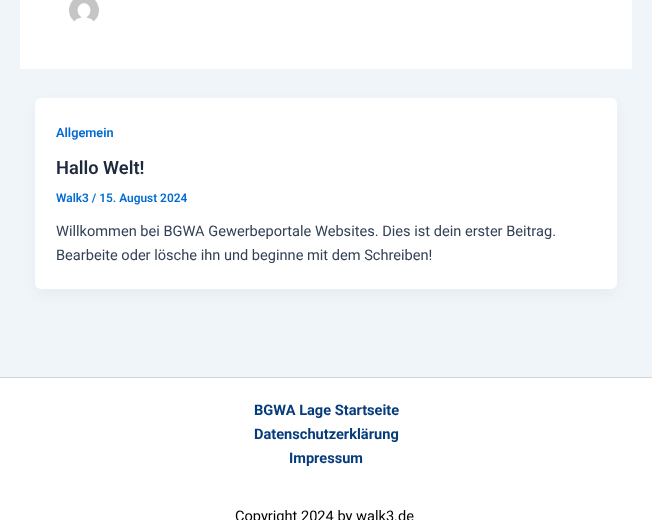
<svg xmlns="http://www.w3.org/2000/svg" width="652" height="520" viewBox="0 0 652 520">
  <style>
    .t1 { font: 600 12.75px Roboto; fill: #046bd2; }
    .t2 { font: 600 18.25px Roboto; fill: #1e293b; }
    .t3 { font: 600 11.9px Roboto; fill: #046bd2; }
    .t4 { font: 14.6px Roboto; fill: #334155; }
    .t5 { font: bold 14.6px Roboto; fill: #073c7c; }
    .t6 { font: 14.6px Roboto; fill: #000; }
  </style>
  <rect width="100%" height="100%" fill="#f0f5fa"/>
  <rect x="20" y="0" width="612" height="69" fill="#fff"/>
  <image x="69" y="0" width="30" height="22" href="images/1.png"/>
  <rect x="37" y="106" width="578" height="187" rx="4" fill="#1018280d" filter="blur(7.5px)"/>
  <rect x="35" y="98" width="582" height="191" rx="6" fill="#fff"/>
  <text x="56" y="137" class="t1">Allgemein</text>
  <text x="56" y="174" class="t2">Hallo Welt!</text>
  <text x="56" y="202" class="t3">Walk3 / 15. August 2024</text>
  <text x="56" y="236" class="t4">Willkommen bei BGWA Gewerbeportale Websites. Dies ist dein erster Beitrag.</text>
  <text x="56" y="260" class="t4">Bearbeite oder lösche ihn und beginne mit dem Schreiben!</text>
  <rect x="0" y="378" width="652" height="142" fill="#fff"/>
  <rect x="0" y="377" width="652" height="1" fill="#d1d5db"/>
  <text x="254" y="415" class="t5">BGWA Lage Startseite</text>
  <text x="254" y="439" class="t5">Datenschutzerklärung</text>
  <text x="289" y="463" class="t5">Impressum</text>
  <text x="235" y="521" class="t6">Copyright 2024 by walk3.de</text>
</svg>
